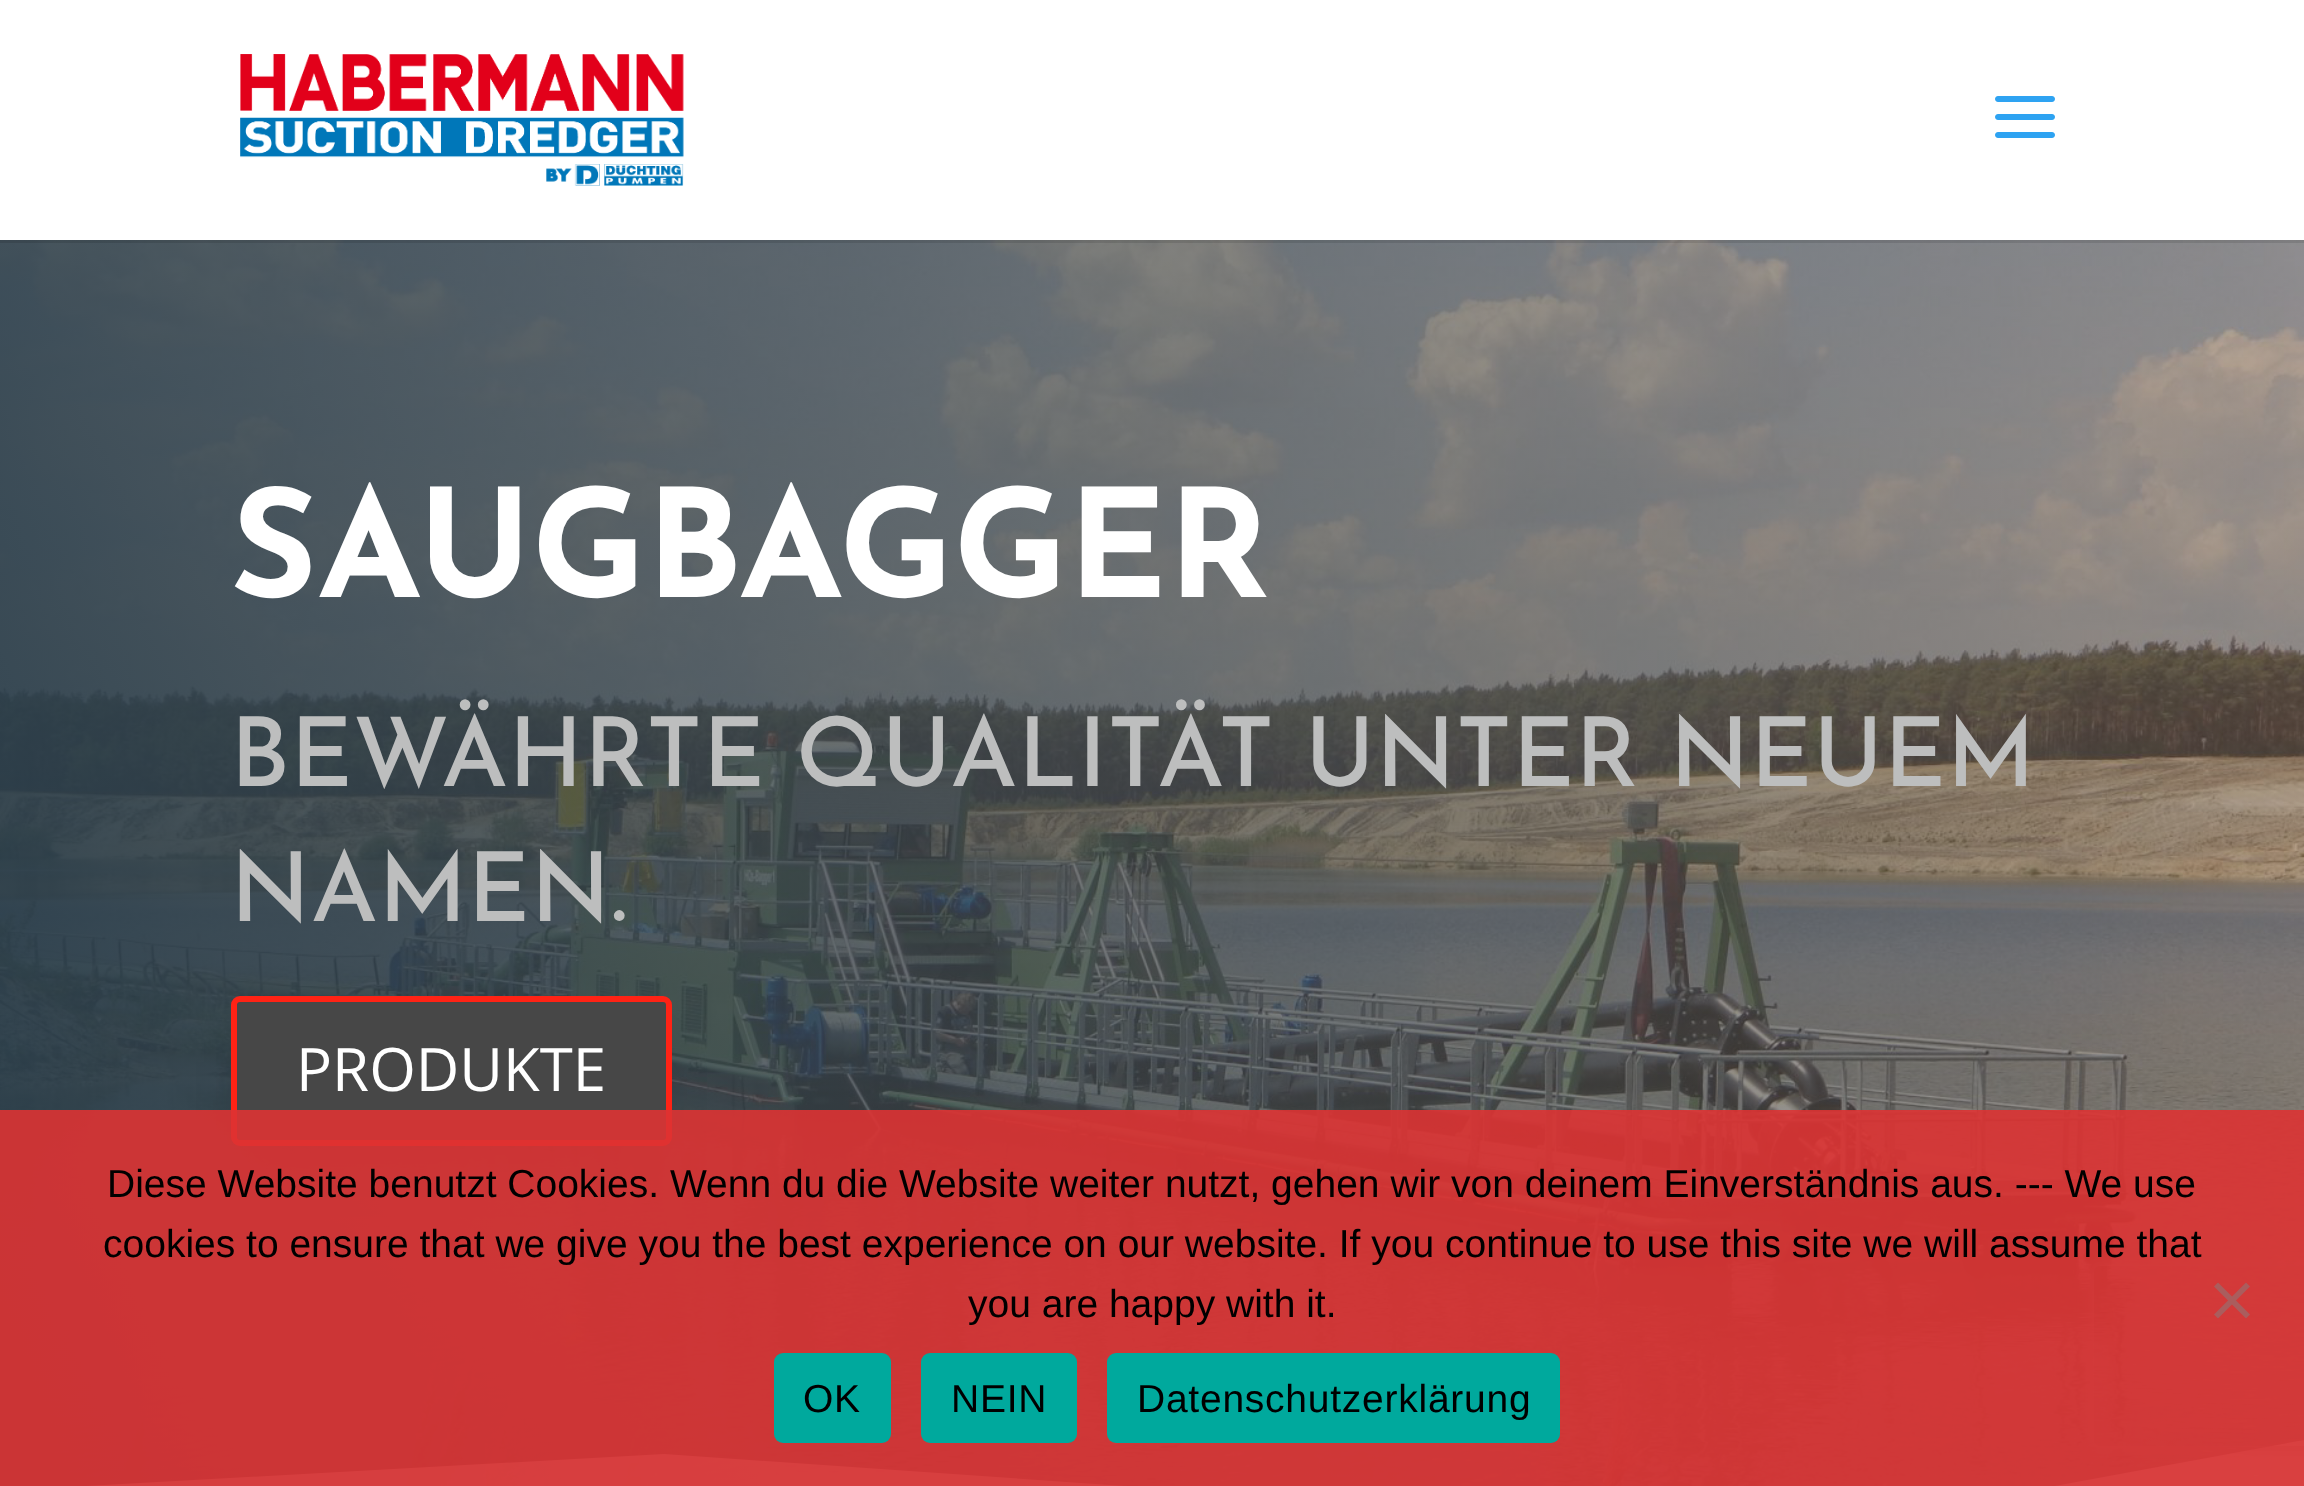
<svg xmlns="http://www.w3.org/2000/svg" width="2304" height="1486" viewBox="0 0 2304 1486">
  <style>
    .t1 { font: bold 150px Josefin Sans; fill: #fff; }
    .t2 { font: 500 96px Josefin Sans; fill: #bdbebe; }
    .t3 { font: 60px Open Sans; fill: #fff; }
    .t4 { font: 39px Liberation Sans; fill: #000; }
    .t5 { font: 39px Liberation Sans; letter-spacing: 0.75px; fill: #000; }
  </style>
  <defs>
    <clipPath id="clip1"><path d="M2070 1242H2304V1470H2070ZM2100 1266H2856C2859.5 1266 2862 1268.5 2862 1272V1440C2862 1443.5 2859.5 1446 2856 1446H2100C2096.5 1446 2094 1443.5 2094 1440V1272C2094 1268.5 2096.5 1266 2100 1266Z" clip-rule="evenodd"/></clipPath>
  </defs>
  <rect width="100%" height="100%" fill="#fff"/>
  <image x="0" y="240" width="2304" height="1246" href="images/3.png"/>
  <rect x="0" y="240" width="2304" height="3" fill="#0000001a"/>
  <image x="240" y="54" width="444" height="132" href="images/1.png"/>
  <image x="1995" y="96" width="60" height="42" href="images/2.png"/>
  <text x="230" y="597" class="t1">SAUGBAGGER</text>
  <text x="230" y="786" class="t2">BEWÄHRTE QUALITÄT UNTER NEUEM</text>
  <text x="230" y="921" class="t2">NAMEN.</text>
  <rect x="261" y="1062" width="381" height="90" fill="#0000004d" filter="blur(30px)"/>
  <rect x="234" y="999" width="435" height="144" rx="6" fill="#474747" stroke="#ff2315" stroke-width="6"/>
  <text x="296" y="1091" class="t3">PRODUKTE</text>
  <path d="M2304 1440L1800 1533L664 1454L-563 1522L-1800 1394L-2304 1440V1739H2304Z" fill="#ffffff80"/>
  <g clip-path="url(#clip1)">
    <rect x="2094" y="1266" width="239" height="180" rx="6" fill="#808080" filter="blur(7.5px)"/>
  </g>
  <rect x="0" y="1110" width="2304" height="376" fill="#dd3333e6"/>
  <text x="107" y="1197" class="t4">Diese Website benutzt Cookies. Wenn du die Website weiter nutzt, gehen wir von deinem Einverständnis aus. --- We use</text>
  <text x="103" y="1257" class="t4">cookies to ensure that we give you the best experience on our website. If you continue to use this site we will assume that</text>
  <text x="968" y="1317" class="t4">you are happy with it.</text>
  <path d="M2246 1282.5L2250 1286.5L2218 1318.5L2214 1314.5Z" fill="#aa5d5d"/>
  <path d="M2214 1286.5L2218 1282.5L2250 1314.5L2246 1318.5Z" fill="#aa5d5d"/>
  <rect x="774" y="1353" width="117" height="90" rx="9" fill="#00a99d"/>
  <text x="803" y="1412" class="t5">OK</text>
  <rect x="921" y="1353" width="156" height="90" rx="9" fill="#00a99d"/>
  <text x="951" y="1412" class="t5">NEIN</text>
  <rect x="1107" y="1353" width="453" height="90" rx="9" fill="#00a99d"/>
  <text x="1137" y="1412" class="t5">Datenschutzerklärung</text>
</svg>
